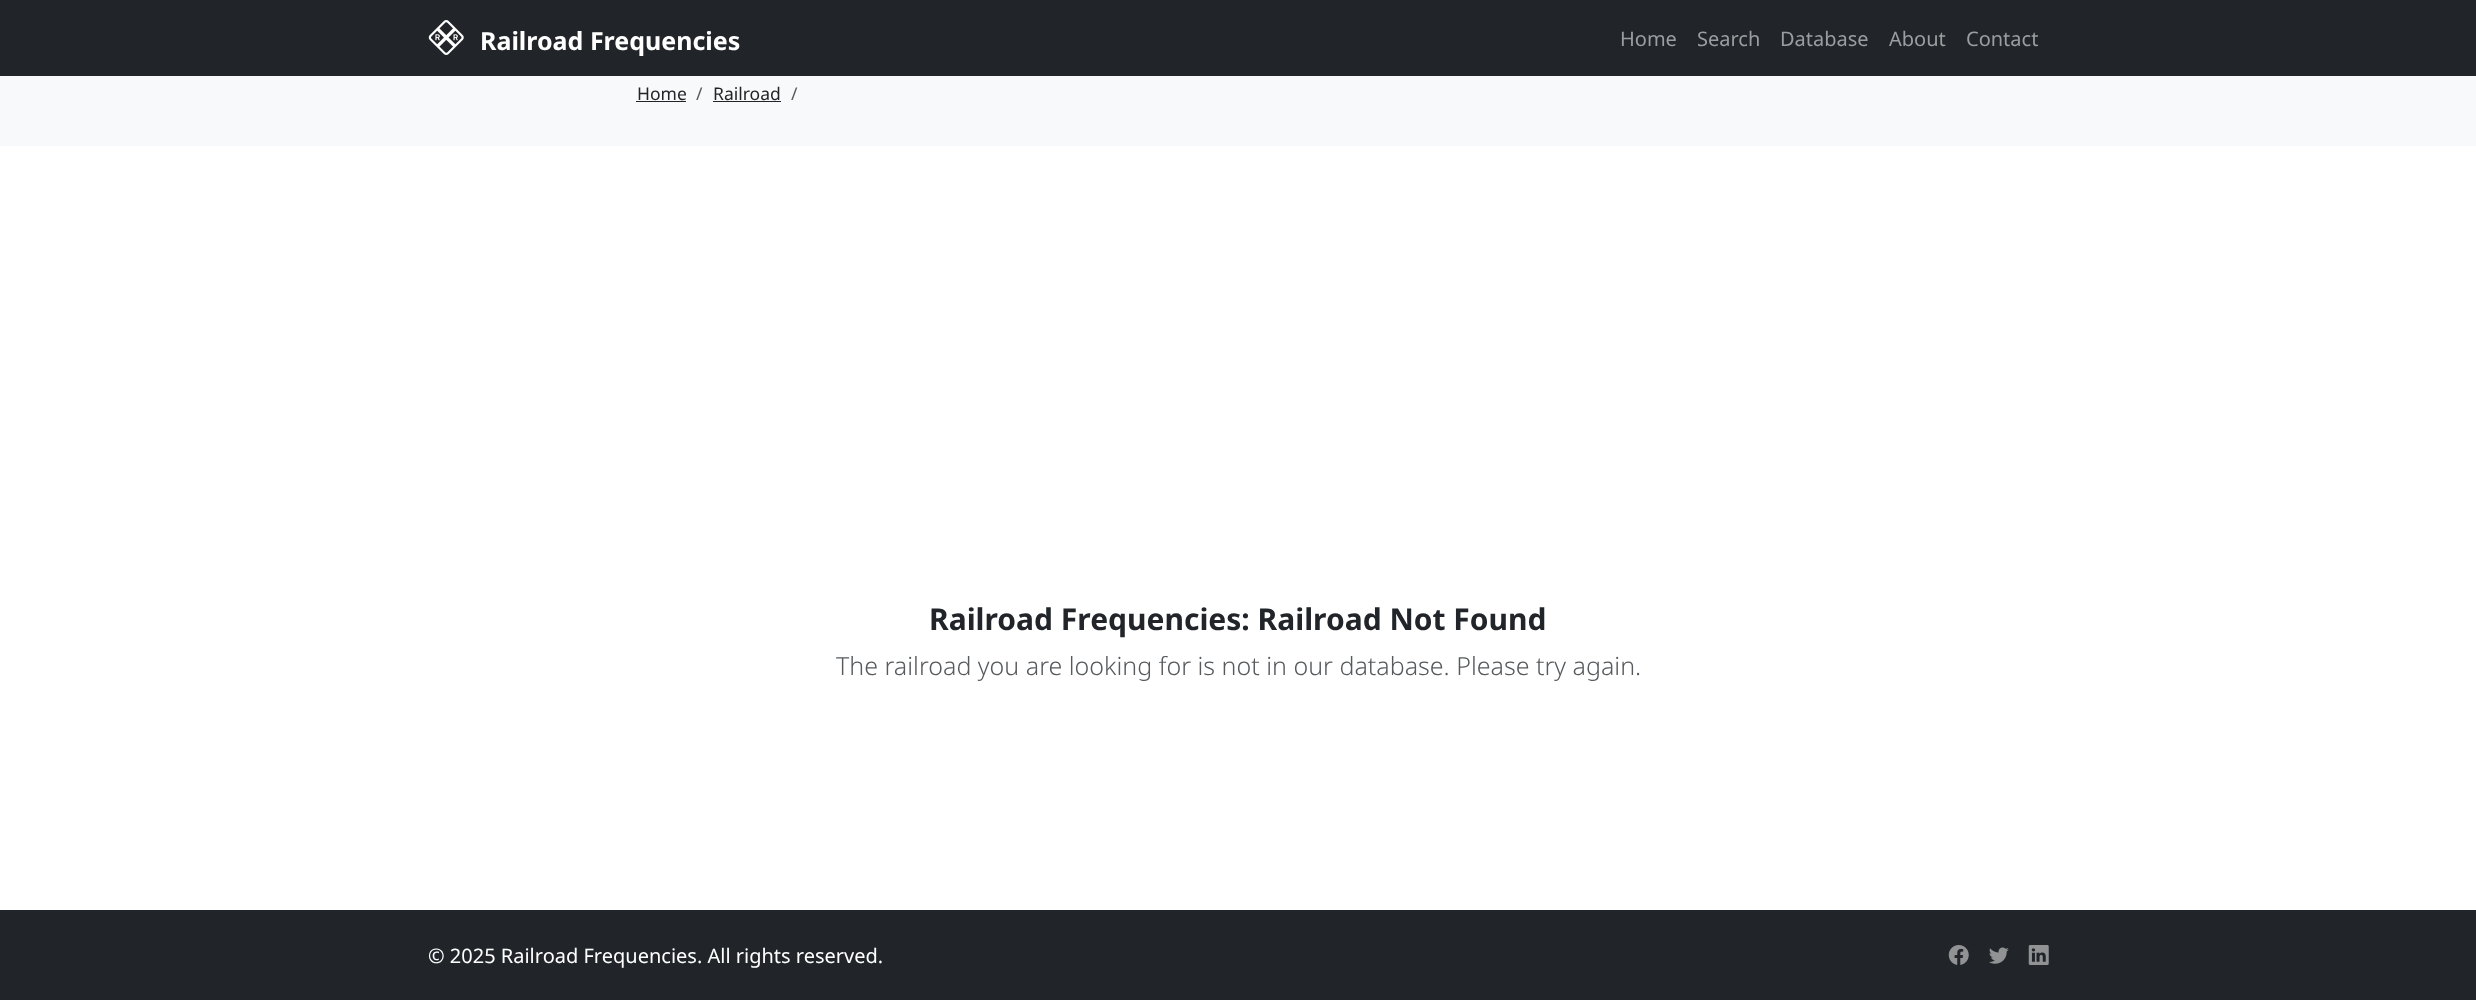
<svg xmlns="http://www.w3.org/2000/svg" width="2476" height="1000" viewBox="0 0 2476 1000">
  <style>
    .t1 { font: bold 25px Noto Sans; fill: #fff; }
    .t2 { font: 20px Noto Sans; fill: #9b9d9f; }
    .t3 { font: 17.5px Noto Sans; fill: #212529; }
    .t4 { font: 17.5px Noto Sans; fill: #575a5d; }
    .t5 { font: bold 30px Noto Sans; fill: #212529; }
    .t6 { font: 300 25px Noto Sans; fill: #575a5d; }
    .t7 { font: 20px Noto Sans; fill: #fff; }
  </style>
  <rect width="100%" height="100%" fill="#fff"/>
  <rect x="0" y="0" width="2476" height="76" fill="#212529"/>
  <image x="428" y="20" width="36" height="35" href="images/1.png"/>
  <text x="480" y="50" class="t1">Railroad Frequencies</text>
  <text x="1620" y="46" class="t2">Home</text>
  <text x="1697" y="46" class="t2">Search</text>
  <text x="1780" y="46" class="t2">Database</text>
  <text x="1889" y="46" class="t2">About</text>
  <text x="1966" y="46" class="t2">Contact</text>
  <rect x="0" y="76" width="2476" height="70" fill="#f8f9fa"/>
  <text x="637" y="100" class="t3">Home</text>
  <rect x="636" y="101" width="50" height="1" fill="#212529"/>
  <text x="696" y="100" class="t4">/</text>
  <text x="713" y="100" class="t3">Railroad</text>
  <rect x="713" y="101" width="68" height="1" fill="#212529"/>
  <text x="791" y="100" class="t4">/</text>
  <text x="929" y="630" class="t5">Railroad Frequencies: Railroad Not Found</text>
  <text x="836" y="675" class="t6">The railroad you are looking for is not in our database. Please try again.</text>
  <rect x="0" y="910" width="2476" height="90" fill="#212529"/>
  <text x="428" y="963" class="t7">© 2025 Railroad Frequencies. All rights reserved.</text>
  <image x="1948" y="945" width="21" height="20" href="images/2.png"/>
  <image x="1989" y="947" width="20" height="17" href="images/3.png"/>
  <image x="2028" y="945" width="21" height="20" href="images/4.png"/>
</svg>
